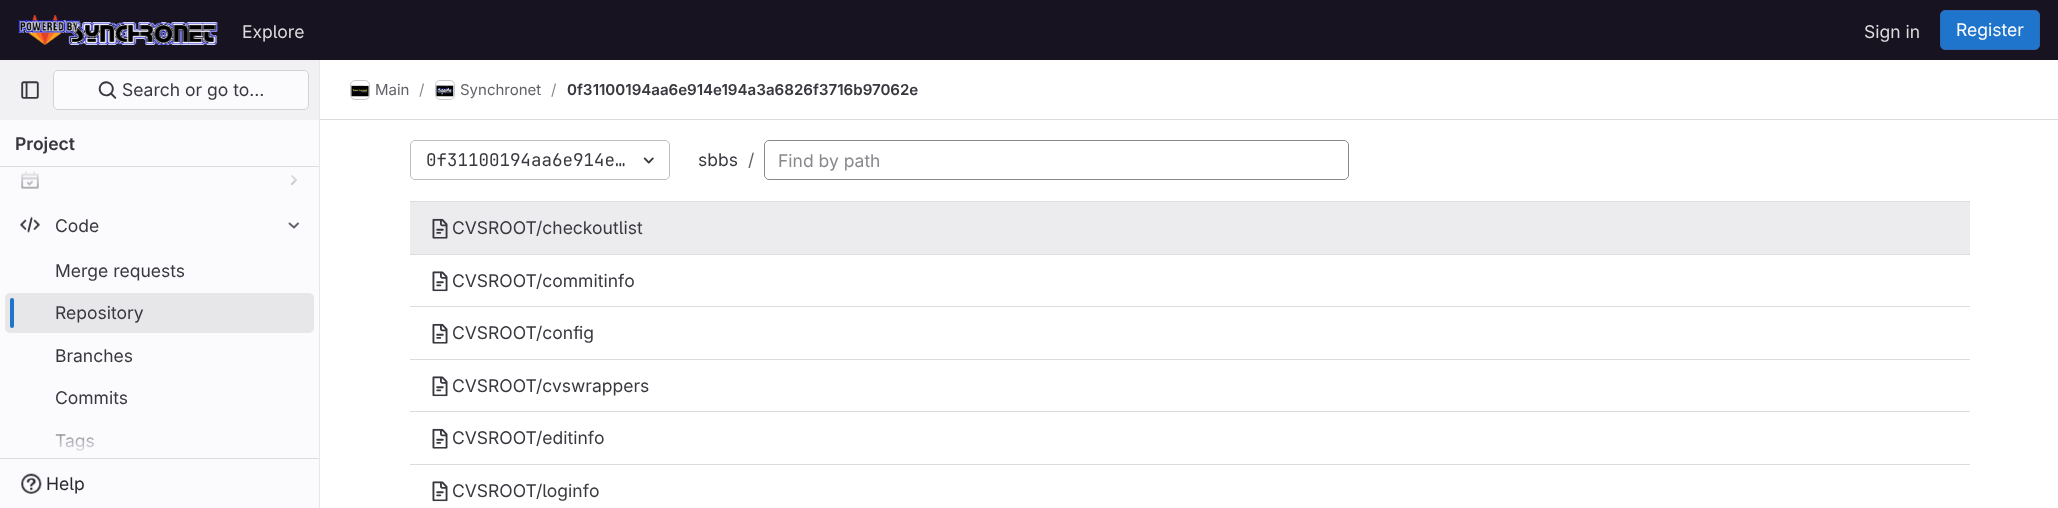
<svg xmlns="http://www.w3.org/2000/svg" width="2058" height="508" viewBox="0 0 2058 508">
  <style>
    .t1 { font: 17.5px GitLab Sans; fill: #dcdcde; }
    .t2 { font: 17.5px GitLab Sans; fill: #fff; }
    .t3 { font: 17.5px GitLab Sans; fill: #3a383f; }
    .t4 { font: 600 17.5px GitLab Sans; fill: #3a383f; }
    .t5 { font: 17.5px GitLab Sans; fill: #28272d; }
    .t6 { font: 15px GitLab Sans; fill: #626168; }
    .t7 { font: 15px GitLab Sans; fill: #89888d; }
    .t8 { font: 600 15px GitLab Sans; fill: #3a383f; }
    .t9 { font: 17.5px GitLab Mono; fill: #3a383f; }
    .t10 { font: 17.5px GitLab Sans; fill: #626168; }
    .t11 { font: 17.5px GitLab Sans; fill: #89888d; }
  </style>
  <defs>
    <linearGradient id="g1" gradientUnits="userSpaceOnUse" x1="159" y1="168" x2="159" y2="213"><stop offset="0" stop-color="#fbfafd"/><stop offset="1" stop-color="#fbfafd" stop-opacity="0"/></linearGradient>
    <linearGradient id="g2" gradientUnits="userSpaceOnUse" x1="159" y1="413" x2="159" y2="458"><stop offset="0" stop-color="#fbfafd" stop-opacity="0"/><stop offset="1" stop-color="#fbfafd"/></linearGradient>
  </defs>
  <rect width="100%" height="100%" fill="#fff"/>
  <rect x="0" y="0" width="2058" height="60" fill="#171321"/>
  <image x="18" y="15" width="200" height="30" href="images/1.png"/>
  <text x="242" y="38" class="t1">Explore</text>
  <text x="1864" y="38" class="t1">Sign in</text>
  <rect x="1940.5" y="10.5" width="99" height="39" rx="4.5" fill="#1f75cb" stroke="#2f68b4"/>
  <text x="1956" y="36" class="t2">Register</text>
  <rect x="0" y="120" width="319" height="388" fill="#fbfafd"/>
  <rect x="319" y="60" width="1" height="448" fill="#e7e6e9"/>
  <rect x="0" y="60" width="319" height="60" fill="#f1f0f3"/>
  <image x="21" y="81" width="18" height="18" href="images/2.png"/>
  <rect x="53" y="70" width="256" height="40" rx="5" fill="#fbfafd"/>
  <rect x="53.5" y="70.5" width="255" height="39" rx="4.5" fill="none" stroke="#05050629"/>
  <image x="98" y="81" width="19" height="18" href="images/3.png"/>
  <text x="122" y="96" class="t3">Search or go to…</text>
  <text x="15" y="150" class="t4">Project</text>
  <rect x="0" y="166" width="319" height="1" fill="#dcdcde"/>
  <rect x="0" y="458" width="319" height="1" fill="#dcdcde"/>
  <image x="21" y="170" width="18" height="19" href="images/4.png"/>
  <path d="M292 176L296 180L292 184" fill="none" stroke="#626168" stroke-width="1.9" stroke-linecap="round" stroke-linejoin="round"/>
  <rect x="21" y="170" width="276" height="19" fill="url(#g1)"/>
  <image x="20" y="216" width="20" height="17" href="images/5.png"/>
  <text x="55" y="232" class="t3">Code</text>
  <path d="M298 223.5L294 227.5L289.5 223.5" fill="none" stroke="#626168" stroke-width="1.9" stroke-linecap="round" stroke-linejoin="round"/>
  <text x="55" y="277" class="t3">Merge requests</text>
  <rect x="5" y="293" width="309" height="40" rx="5" fill="#e7e6e9"/>
  <rect x="10" y="298" width="4" height="30" rx="2" fill="#1f75cb"/>
  <text x="55" y="319" class="t3">Repository</text>
  <text x="55" y="362" class="t3">Branches</text>
  <text x="55" y="404" class="t3">Commits</text>
  <text x="55" y="447" class="t3">Tags</text>
  <rect x="55" y="434" width="39" height="17" fill="url(#g2)"/>
  <image x="21" y="473" width="21" height="21" href="images/6.png"/>
  <text x="46" y="490" class="t5">Help</text>
  <rect x="320" y="119" width="1738" height="1" fill="#dcdcde"/>
  <rect x="350.5" y="80.5" width="19" height="19" rx="4.5" fill="none" stroke="#dcdcde"/>
  <image x="351" y="85" width="18" height="12" href="images/7.png"/>
  <rect x="350.5" y="80.5" width="19" height="19" rx="4.5" fill="none" stroke="#05050614"/>
  <text x="375" y="95" class="t6">Main</text>
  <text x="419" y="95" class="t7">/</text>
  <rect x="435.5" y="80.5" width="19" height="19" rx="4.5" fill="none" stroke="#dcdcde"/>
  <image x="436" y="85" width="18" height="12" href="images/8.png"/>
  <rect x="435.5" y="80.5" width="19" height="19" rx="4.5" fill="none" stroke="#05050614"/>
  <text x="460" y="95" class="t6">Synchronet</text>
  <text x="551" y="95" class="t7">/</text>
  <text x="567" y="95" class="t8">0f31100194aa6e914e194a3a6826f3716b97062e</text>
  <rect x="410.5" y="140.5" width="259" height="39" rx="4.5" fill="none" stroke="#bfbfc3"/>
  <text x="426" y="166" class="t9">0f31100194aa6e914e…</text>
  <image x="643" y="157" width="11" height="7" href="images/9.png"/>
  <text x="698" y="166" class="t3">sbbs</text>
  <text x="748" y="166" class="t10">/</text>
  <rect x="764.5" y="140.5" width="584" height="39" rx="4.5" fill="none" stroke="#89888d"/>
  <text x="778" y="167" class="t11">Find by path</text>
  <rect x="410" y="254" width="1560" height="1" fill="#dcdcde"/>
  <rect x="410" y="202" width="1560" height="52" fill="#ececef"/>
  <rect x="410" y="201" width="1560" height="1" fill="#dcdcde"/>
  <image x="432" y="218" width="16" height="21" href="images/10.png"/>
  <text x="452" y="234" class="t3">CVSROOT/checkoutlist</text>
  <rect x="410" y="306" width="1560" height="1" fill="#dcdcde"/>
  <image x="432" y="271" width="16" height="21" href="images/11.png"/>
  <text x="452" y="287" class="t3">CVSROOT/commitinfo</text>
  <rect x="410" y="359" width="1560" height="1" fill="#dcdcde"/>
  <image x="432" y="323" width="16" height="21" href="images/12.png"/>
  <text x="452" y="339" class="t3">CVSROOT/config</text>
  <rect x="410" y="411" width="1560" height="1" fill="#dcdcde"/>
  <image x="432" y="376" width="16" height="21" href="images/11.png"/>
  <text x="452" y="392" class="t3">CVSROOT/cvswrappers</text>
  <rect x="410" y="464" width="1560" height="1" fill="#dcdcde"/>
  <image x="432" y="428" width="16" height="21" href="images/12.png"/>
  <text x="452" y="444" class="t3">CVSROOT/editinfo</text>
  <image x="432" y="481" width="16" height="21" href="images/11.png"/>
  <text x="452" y="497" class="t3">CVSROOT/loginfo</text>
</svg>
